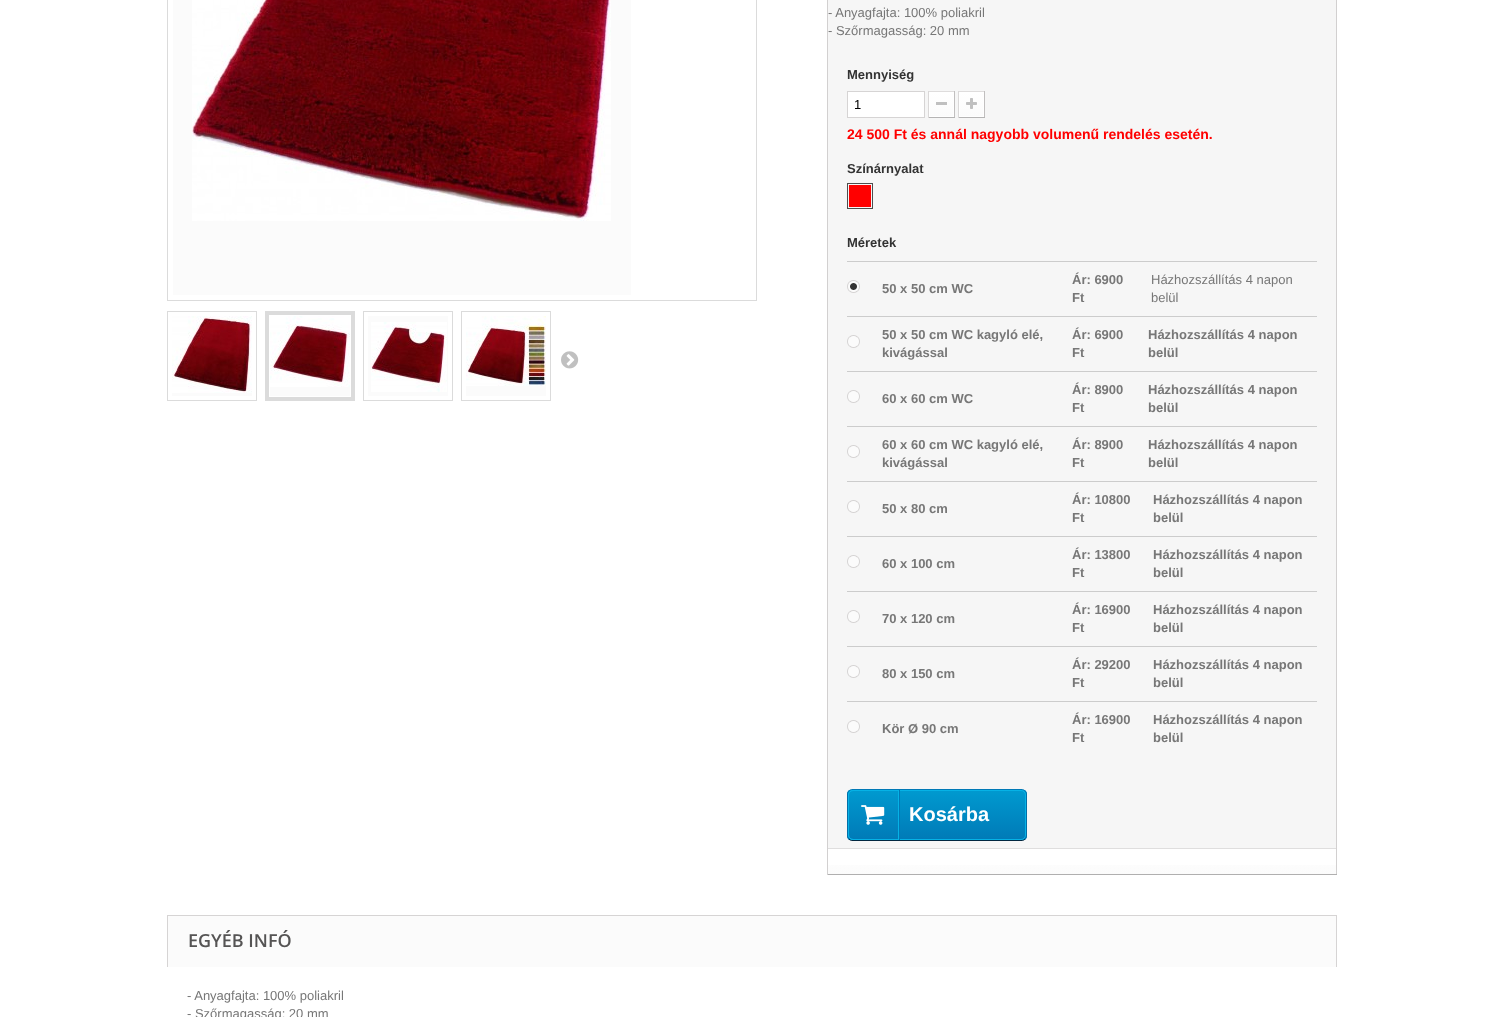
<svg xmlns="http://www.w3.org/2000/svg" width="1503" height="1017" viewBox="0 0 1503 1017">
  <style>
    .t1 { font: 13px Liberation Sans; fill: #777; }
    .t2 { font: bold 13px Liberation Sans; fill: #333; }
    .t3 { font: 13px Liberation Sans; fill: #000; }
    .t4 { font: bold 14px Liberation Sans; fill: #f00; }
    .t5 { font: bold 13px Liberation Sans; fill: #777; }
    .t6 { font: bold 20px Liberation Sans; fill: #fff; }
    .t7 { font: 600 18px Open Sans; fill: #555454; }
  </style>
  <defs>
    <linearGradient id="g1" gradientUnits="userSpaceOnUse" x1="942" y1="93" x2="942" y2="116"><stop offset="0" stop-color="#fff"/><stop offset="1" stop-color="#fbfbfb"/></linearGradient>
    <linearGradient id="g2" gradientUnits="userSpaceOnUse" x1="972" y1="93" x2="972" y2="116"><stop offset="0" stop-color="#fff"/><stop offset="1" stop-color="#fbfbfb"/></linearGradient>
    <clipPath id="clip1"><rect x="847" y="789" width="180" height="52" rx="5"/></clipPath>
    <linearGradient id="g3" gradientUnits="userSpaceOnUse" x1="937" y1="790" x2="937" y2="840"><stop offset="0" stop-color="#009ad0"/><stop offset="1" stop-color="#007ab7"/></linearGradient>
    <linearGradient id="g4" gradientUnits="userSpaceOnUse" x1="1082" y1="849" x2="1082" y2="874"><stop offset="0" stop-color="#fff"/><stop offset="1" stop-color="#fbfbfb"/></linearGradient>
  </defs>
  <rect width="100%" height="100%" fill="#fff"/>
  <rect x="167.5" y="-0.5" width="589" height="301" fill="none" stroke="#dbdbdb"/>
  <rect x="173" y="0" width="458" height="295" fill="#fbfbfb"/>
  <image x="192" y="0" width="419" height="221" href="images/1.png"/>
  <rect x="167.5" y="311.5" width="89" height="89" fill="none" stroke="#dbdbdb"/>
  <rect x="172" y="393" width="80" height="3" fill="#fbfbfb"/>
  <image x="172" y="316" width="80" height="77" href="images/2.png"/>
  <rect x="265.5" y="311.5" width="89" height="89" fill="none" stroke="#dbdbdb"/>
  <rect x="270" y="387" width="80" height="9" fill="#fbfbfb"/>
  <rect x="267.5" y="313.5" width="85" height="85" fill="none" stroke="#dbdbdb" stroke-width="3"/>
  <image x="270" y="316" width="80" height="71" href="images/3.png"/>
  <rect x="363.5" y="311.5" width="89" height="89" fill="none" stroke="#dbdbdb"/>
  <rect x="368" y="316" width="80" height="80" fill="#fbfbfb"/>
  <image x="371" y="322" width="76" height="70" href="images/4.png"/>
  <rect x="461.5" y="311.5" width="89" height="89" fill="none" stroke="#dbdbdb"/>
  <rect x="466" y="386" width="80" height="10" fill="#fbfbfb"/>
  <image x="466" y="316" width="80" height="70" href="images/5.png"/>
  <image x="561" y="351" width="18" height="18" href="images/6.png"/>
  <rect x="828" y="0" width="508" height="848" fill="#f6f6f6"/>
  <rect x="1336" y="0" width="1" height="875" fill="#d2d0d0"/>
  <rect x="827" y="874" width="510" height="1" fill="#b0afaf"/>
  <rect x="827" y="0" width="1" height="875" fill="#d2d0d0"/>
  <text x="828" y="17" class="t1">- Anyagfajta: 100% poliakril</text>
  <text x="828" y="35" class="t1">- Szőrmagasság: 20 mm</text>
  <text x="847" y="79" class="t2">Mennyiség</text>
  <rect x="847.5" y="91.5" width="77" height="26" fill="#fff" stroke="#d6d4d4"/>
  <text x="854" y="109" class="t3">1</text>
  <rect x="928" y="91" width="27" height="1" fill="#dedcdc"/>
  <rect x="954" y="91" width="1" height="27" fill="#c1bfbf"/>
  <rect x="928" y="117" width="27" height="1" fill="#b5b4b4"/>
  <rect x="928" y="91" width="1" height="27" fill="#dad8d8"/>
  <rect x="930" y="93" width="23" height="23" fill="url(#g1)"/>
  <rect x="929.5" y="92.5" width="24" height="24" fill="none" stroke="#fff"/>
  <rect x="936" y="102" width="11" height="3" fill="#c0c0c0"/>
  <rect x="958" y="91" width="27" height="1" fill="#dedcdc"/>
  <rect x="984" y="91" width="1" height="27" fill="#c1bfbf"/>
  <rect x="958" y="117" width="27" height="1" fill="#b5b4b4"/>
  <rect x="958" y="91" width="1" height="27" fill="#dad8d8"/>
  <rect x="960" y="93" width="23" height="23" fill="url(#g2)"/>
  <rect x="959.5" y="92.5" width="24" height="24" fill="none" stroke="#fff"/>
  <image x="966" y="98" width="11" height="11" href="images/7.png"/>
  <text x="847" y="139" class="t4">24 500 Ft és annál nagyobb volumenű rendelés esetén.</text>
  <text x="847" y="173" class="t2">Színárnyalat</text>
  <rect x="847.5" y="183.5" width="25" height="25" fill="none" stroke="#4d4d4d"/>
  <rect x="849" y="185" width="22" height="22" fill="#f00"/>
  <text x="847" y="247" class="t2">Méretek</text>
  <rect x="847" y="261" width="470" height="1" fill="#ccc"/>
  <image x="847" y="280" width="13" height="13" href="images/8.png"/>
  <text x="882" y="293" class="t5">50 x 50 cm WC</text>
  <text x="1072" y="284" class="t5">Ár: 6900</text>
  <text x="1072" y="302" class="t5">Ft</text>
  <text x="1151" y="284" class="t1">Házhozszállítás 4 napon</text>
  <text x="1151" y="302" class="t1">belül</text>
  <rect x="847" y="316" width="470" height="1" fill="#ccc"/>
  <image x="847" y="335" width="13" height="13" href="images/9.png"/>
  <text x="882" y="339" class="t5">50 x 50 cm WC kagyló elé,</text>
  <text x="882" y="357" class="t5">kivágással</text>
  <text x="1072" y="339" class="t5">Ár: 6900</text>
  <text x="1072" y="357" class="t5">Ft</text>
  <text x="1148" y="339" class="t5">Házhozszállítás 4 napon</text>
  <text x="1148" y="357" class="t5">belül</text>
  <rect x="847" y="371" width="470" height="1" fill="#ccc"/>
  <image x="847" y="390" width="13" height="13" href="images/9.png"/>
  <text x="882" y="403" class="t5">60 x 60 cm WC</text>
  <text x="1072" y="394" class="t5">Ár: 8900</text>
  <text x="1072" y="412" class="t5">Ft</text>
  <text x="1148" y="394" class="t5">Házhozszállítás 4 napon</text>
  <text x="1148" y="412" class="t5">belül</text>
  <rect x="847" y="426" width="470" height="1" fill="#ccc"/>
  <image x="847" y="445" width="13" height="13" href="images/9.png"/>
  <text x="882" y="449" class="t5">60 x 60 cm WC kagyló elé,</text>
  <text x="882" y="467" class="t5">kivágással</text>
  <text x="1072" y="449" class="t5">Ár: 8900</text>
  <text x="1072" y="467" class="t5">Ft</text>
  <text x="1148" y="449" class="t5">Házhozszállítás 4 napon</text>
  <text x="1148" y="467" class="t5">belül</text>
  <rect x="847" y="481" width="470" height="1" fill="#ccc"/>
  <image x="847" y="500" width="13" height="13" href="images/9.png"/>
  <text x="882" y="513" class="t5">50 x 80 cm</text>
  <text x="1072" y="504" class="t5">Ár: 10800</text>
  <text x="1072" y="522" class="t5">Ft</text>
  <text x="1153" y="504" class="t5">Házhozszállítás 4 napon</text>
  <text x="1153" y="522" class="t5">belül</text>
  <rect x="847" y="536" width="470" height="1" fill="#ccc"/>
  <image x="847" y="555" width="13" height="13" href="images/9.png"/>
  <text x="882" y="568" class="t5">60 x 100 cm</text>
  <text x="1072" y="559" class="t5">Ár: 13800</text>
  <text x="1072" y="577" class="t5">Ft</text>
  <text x="1153" y="559" class="t5">Házhozszállítás 4 napon</text>
  <text x="1153" y="577" class="t5">belül</text>
  <rect x="847" y="591" width="470" height="1" fill="#ccc"/>
  <image x="847" y="610" width="13" height="13" href="images/9.png"/>
  <text x="882" y="623" class="t5">70 x 120 cm</text>
  <text x="1072" y="614" class="t5">Ár: 16900</text>
  <text x="1072" y="632" class="t5">Ft</text>
  <text x="1153" y="614" class="t5">Házhozszállítás 4 napon</text>
  <text x="1153" y="632" class="t5">belül</text>
  <rect x="847" y="646" width="470" height="1" fill="#ccc"/>
  <image x="847" y="665" width="13" height="13" href="images/9.png"/>
  <text x="882" y="678" class="t5">80 x 150 cm</text>
  <text x="1072" y="669" class="t5">Ár: 29200</text>
  <text x="1072" y="687" class="t5">Ft</text>
  <text x="1153" y="669" class="t5">Házhozszállítás 4 napon</text>
  <text x="1153" y="687" class="t5">belül</text>
  <rect x="847" y="701" width="470" height="1" fill="#ccc"/>
  <image x="847" y="720" width="13" height="13" href="images/9.png"/>
  <text x="882" y="733" class="t5">Kör Ø 90 cm</text>
  <text x="1072" y="724" class="t5">Ár: 16900</text>
  <text x="1072" y="742" class="t5">Ft</text>
  <text x="1153" y="724" class="t5">Házhozszállítás 4 napon</text>
  <text x="1153" y="742" class="t5">belül</text>
  <g clip-path="url(#clip1)">
    <rect x="847" y="790" width="180" height="50" fill="url(#g3)"/>
  </g>
  <path d="M849 791C849.5 790 851 789.5 852 789.5H1022C1023 789.5 1024.5 790 1025 791" fill="none" stroke="#0079b6"/>
  <path d="M1025 791C1026 791.5 1026.5 793 1026.5 794V836C1026.5 837 1026 838.5 1025 839" fill="none" stroke="#006fa8"/>
  <path d="M1025 839C1024.5 840 1023 840.5 1022 840.5H852C851 840.5 849.5 840 849 839" fill="none" stroke="#012740"/>
  <path d="M849 839C848 838.5 847.5 837 847.5 836V794C847.5 793 848 791.5 849 791" fill="none" stroke="#006fa8"/>
  <rect x="848.5" y="790.5" width="177" height="49" rx="4.5" fill="none" stroke="#06b2e6"/>
  <path d="M853 790.5H898.5V839.5H853C850.5 839.5 848.5 837.5 848.5 835V795C848.5 792.5 850.5 790.5 853 790.5Z" fill="none" stroke="#06b2e6"/>
  <image x="861" y="805" width="24" height="20" href="images/10.png"/>
  <rect x="899" y="790" width="1" height="50" fill="#0079b6"/>
  <text x="909" y="821" class="t6">Kosárba</text>
  <rect x="828" y="865" width="508" height="9" fill="url(#g4)"/>
  <rect x="828" y="848" width="508" height="1" fill="#dfdede"/>
  <rect x="168" y="916" width="1168" height="51" fill="#fbfbfb"/>
  <rect x="167" y="915" width="1170" height="1" fill="#d6d4d4"/>
  <rect x="1336" y="915" width="1" height="52" fill="#d6d4d4"/>
  <rect x="167" y="915" width="1" height="52" fill="#d6d4d4"/>
  <text x="188" y="947" class="t7">EGYÉB INFÓ</text>
  <text x="187" y="1000" class="t1">- Anyagfajta: 100% poliakril</text>
  <text x="187" y="1018" class="t1">- Szőrmagasság: 20 mm</text>
</svg>
